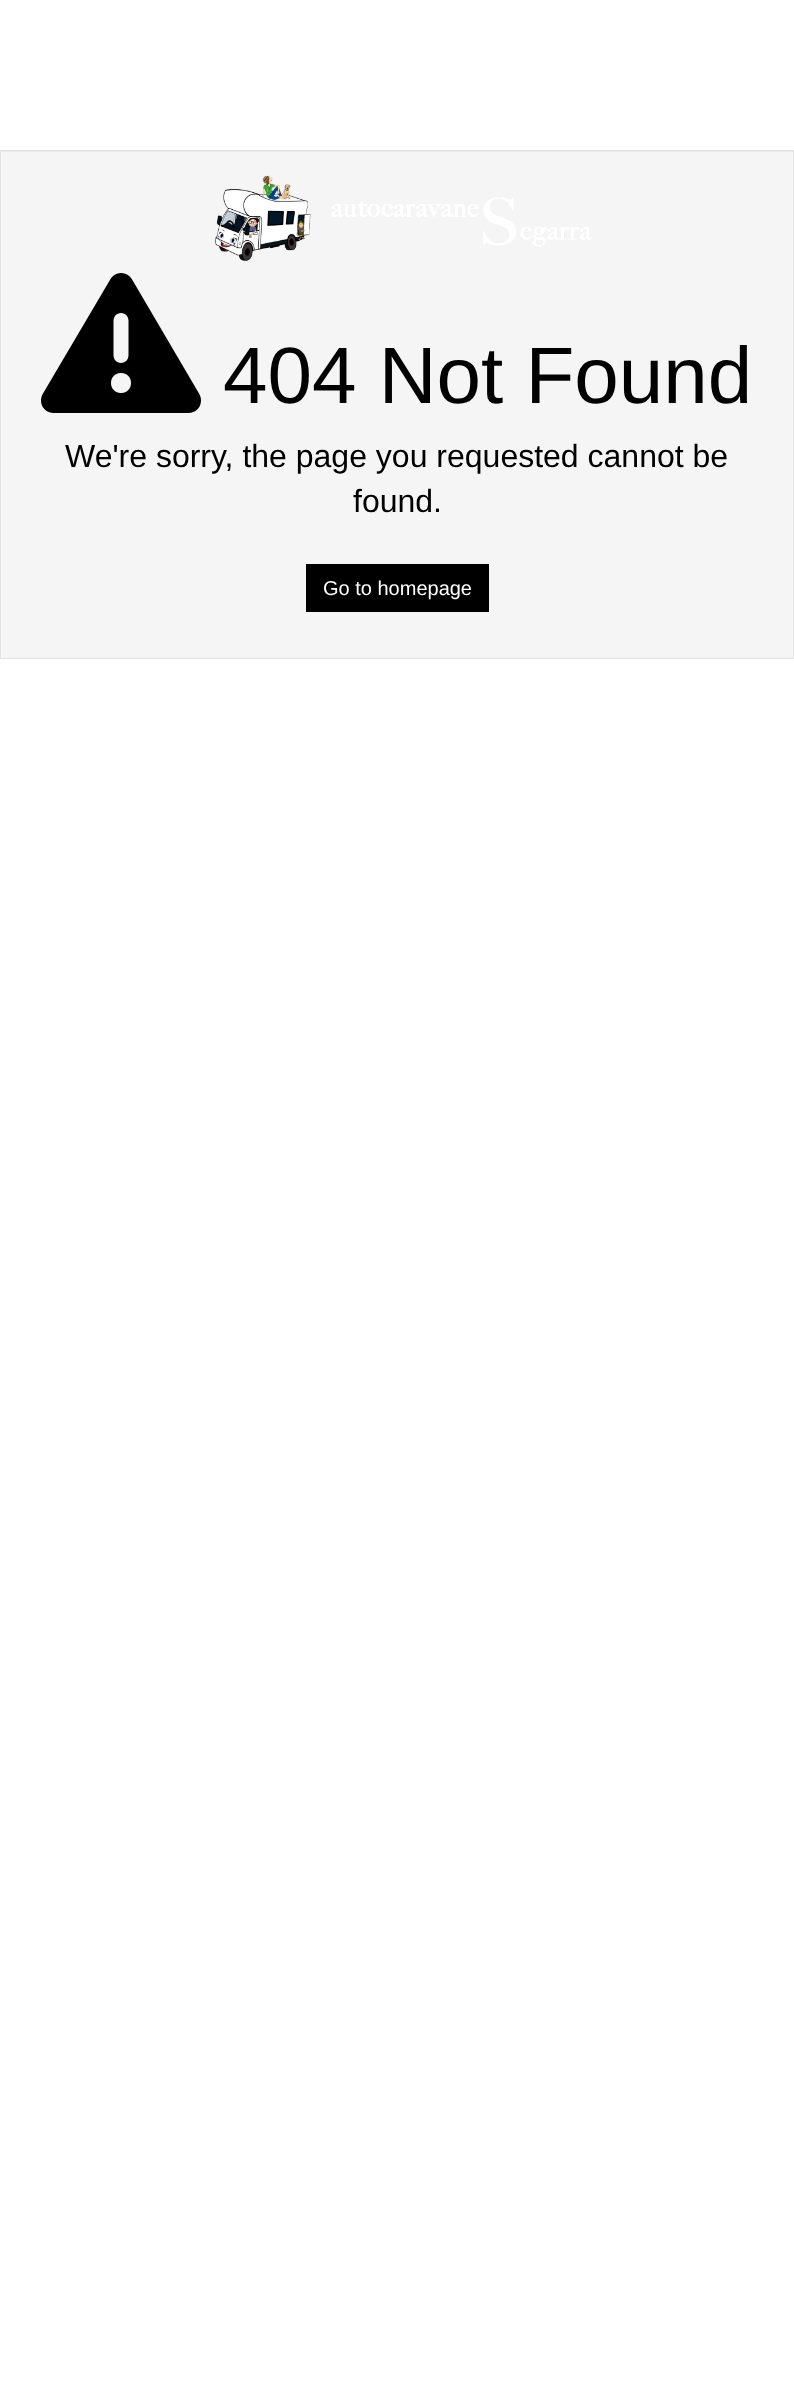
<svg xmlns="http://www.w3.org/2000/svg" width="794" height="2399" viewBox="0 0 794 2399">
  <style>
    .t1 { font: 80px Liberation Sans; fill: #000; }
    .t2 { font: 32px Liberation Sans; fill: #000; }
    .t3 { font: 20px Liberation Sans; fill: #fff; }
  </style>
  <rect width="100%" height="100%" fill="#fff"/>
  <rect x="1" y="152" width="792" height="506" fill="#f5f5f5"/>
  <rect x="1" y="151" width="792" height="1" fill="#e9e9e9"/>
  <rect x="0.5" y="150.5" width="793" height="508" fill="none" stroke="#e3e3e3"/>
  <image x="215" y="175" width="377" height="86" href="images/1.png"/>
  <image x="41" y="273" width="160" height="140" href="images/2.png"/>
  <text x="223" y="403" class="t1">404 Not Found</text>
  <text x="65" y="467" class="t2">We're sorry, the page you requested cannot be</text>
  <text x="353" y="512" class="t2">found.</text>
  <rect x="306" y="564" width="183" height="48" fill="#000"/>
  <text x="323" y="595" class="t3">Go to homepage</text>
</svg>
